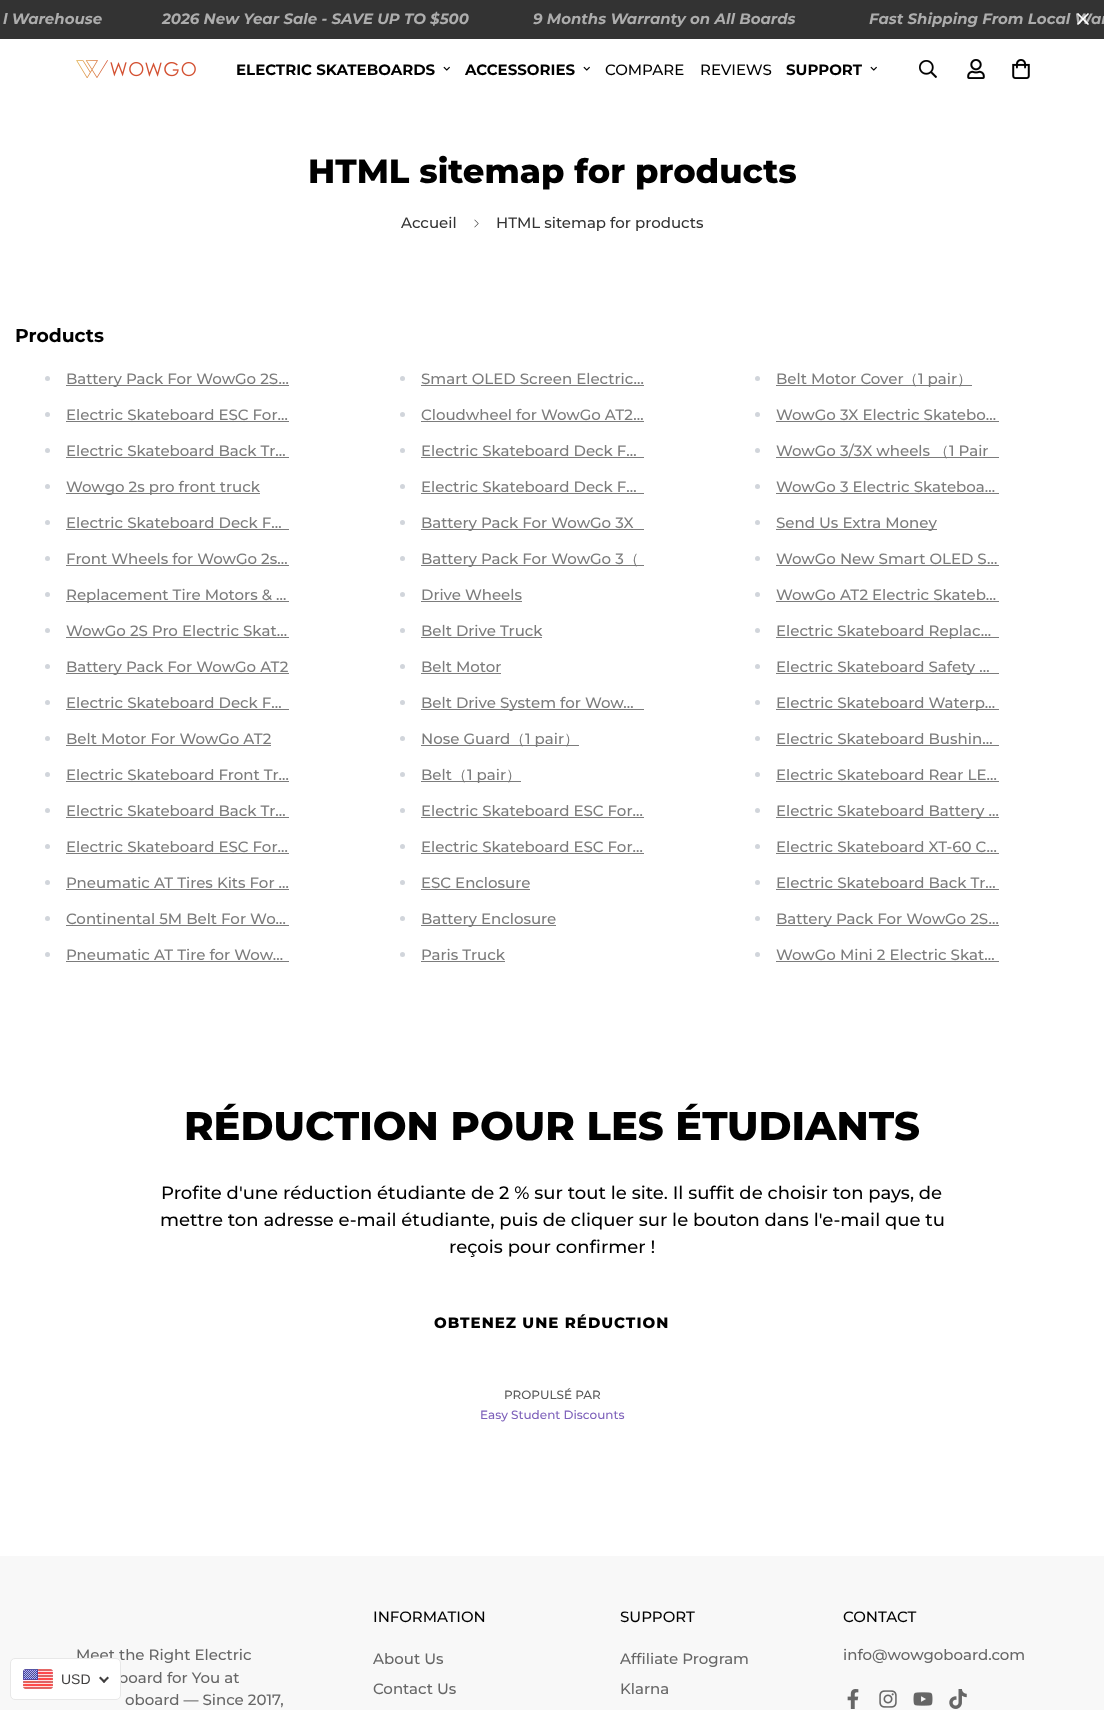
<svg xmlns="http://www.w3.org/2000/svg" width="1104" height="1710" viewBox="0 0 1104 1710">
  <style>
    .t1 { font: italic bold 15px Montserrat; fill: #adadad; }
    .t2 { font: bold 15px Montserrat; fill: #000; }
    .t3 { font: 500 15px Montserrat; fill: #000; }
    .t4 { font: 800 33.75px Montserrat; fill: #000; }
    .t5 { font: 500 15px Montserrat; fill: #333; }
    .t6 { font: bold 18.75px Montserrat; fill: #000; }
    .t7 { font: 500 15px Montserrat; fill: #7c7c7c; }
    .t8 { font: 500 15px WenQuanYi Zen Hei; fill: #7c7c7c; }
    .t9 { font: 800 40px Montserrat; fill: #000; }
    .t10 { font: 500 18px Montserrat; fill: #000; }
    .t11 { font: 800 15px Montserrat; letter-spacing: 1px; fill: #000; }
    .t12 { font: 500 12px Montserrat; fill: #595959; }
    .t13 { font: 500 12px Montserrat; fill: #7d60ba; }
    .t14 { font: 500 15px Montserrat; fill: #666; }
    .t15 { font: 14px Liberation Sans; fill: #403f3f; }
  </style>
  <rect width="100%" height="100%" fill="#fff"/>
  <rect x="0" y="0" width="1104" height="39" fill="#333"/>
  <text x="3" y="24" class="t1">l Warehouse</text>
  <text x="162" y="24" class="t1">2026 New Year Sale - SAVE UP TO $500</text>
  <text x="533" y="24" class="t1">9 Months Warranty on All Boards</text>
  <text x="869" y="24" class="t1">Fast Shipping From Local War</text>
  <path d="M1078 24L1088 14M1078 14L1088 24" fill="none" stroke="#fff" stroke-width="1.7" stroke-linecap="round" stroke-linejoin="round"/>
  <image x="76" y="60" width="120" height="18" href="images/1.png"/>
  <text x="236" y="75" class="t2">ELECTRIC SKATEBOARDS</text>
  <image x="443" y="66" width="7" height="5" href="images/2.png"/>
  <text x="465" y="75" class="t2">ACCESSORIES</text>
  <image x="583" y="66" width="7" height="5" href="images/2.png"/>
  <text x="605" y="75" class="t3">COMPARE</text>
  <text x="700" y="75" class="t3">REVIEWS</text>
  <text x="786" y="75" class="t2">SUPPORT</text>
  <image x="870" y="66" width="7" height="5" href="images/2.png"/>
  <image x="919" y="60" width="18" height="18" href="images/3.png"/>
  <image x="967" y="59" width="18" height="20" href="images/4.png"/>
  <image x="1012" y="59" width="18" height="20" href="images/5.png"/>
  <text x="308" y="183" class="t4">HTML sitemap for products</text>
  <text x="401" y="228" class="t5">Accueil</text>
  <image x="474" y="219" width="5" height="9" href="images/6.png"/>
  <text x="496" y="228" class="t5">HTML sitemap for products</text>
  <text x="15" y="342" class="t6">Products</text>
  <circle cx="47.5" cy="378.5" r="2.5" fill="#d1d5db"/>
  <rect x="66" y="385" width="223" height="1" fill="#7c7c7c"/>
  <text x="66" y="384" class="t7">Battery Pack For WowGo 2S…</text>
  <circle cx="402.5" cy="378.5" r="2.5" fill="#d1d5db"/>
  <text x="421" y="384" class="t7">Smart OLED Screen Electric…</text>
  <rect x="421" y="385" width="223" height="1" fill="#7c7c7c"/>
  <circle cx="757.5" cy="378.5" r="2.5" fill="#d1d5db"/>
  <text x="776" y="384" class="t7">Belt Motor Cover</text>
  <rect x="776" y="385" width="196" height="1" fill="#7c7c7c"/>
  <text x="903" y="384" class="t8">（</text>
  <text x="918" y="384" class="t7">1 pair</text>
  <text x="957" y="384" class="t8">）</text>
  <circle cx="47.5" cy="414.5" r="2.5" fill="#d1d5db"/>
  <text x="66" y="420" class="t7">Electric Skateboard ESC For…</text>
  <rect x="66" y="421" width="223" height="1" fill="#7c7c7c"/>
  <circle cx="402.5" cy="414.5" r="2.5" fill="#d1d5db"/>
  <text x="421" y="420" class="t7">Cloudwheel for WowGo AT2…</text>
  <rect x="421" y="421" width="223" height="1" fill="#7c7c7c"/>
  <circle cx="757.5" cy="414.5" r="2.5" fill="#d1d5db"/>
  <text x="776" y="420" class="t7">WowGo 3X Electric Skatebo…</text>
  <rect x="776" y="421" width="223" height="1" fill="#7c7c7c"/>
  <circle cx="47.5" cy="450.5" r="2.5" fill="#d1d5db"/>
  <text x="66" y="456" class="t7">Electric Skateboard Back Tr…</text>
  <rect x="66" y="457" width="223" height="1" fill="#7c7c7c"/>
  <circle cx="402.5" cy="450.5" r="2.5" fill="#d1d5db"/>
  <text x="421" y="456" class="t7">Electric Skateboard Deck F…</text>
  <rect x="421" y="457" width="223" height="1" fill="#7c7c7c"/>
  <circle cx="757.5" cy="450.5" r="2.5" fill="#d1d5db"/>
  <rect x="776" y="457" width="223" height="1" fill="#7c7c7c"/>
  <text x="776" y="456" class="t7">WowGo 3/3X wheels</text>
  <text x="934" y="456" class="t8">（</text>
  <text x="949" y="456" class="t7">1 Pair</text>
  <circle cx="47.5" cy="486.5" r="2.5" fill="#d1d5db"/>
  <rect x="66" y="493" width="194" height="1" fill="#7c7c7c"/>
  <text x="66" y="492" class="t7">Wowgo 2s pro front truck</text>
  <circle cx="402.5" cy="486.5" r="2.5" fill="#d1d5db"/>
  <text x="421" y="492" class="t7">Electric Skateboard Deck F…</text>
  <rect x="421" y="493" width="223" height="1" fill="#7c7c7c"/>
  <circle cx="757.5" cy="486.5" r="2.5" fill="#d1d5db"/>
  <text x="776" y="492" class="t7">WowGo 3 Electric Skateboa…</text>
  <rect x="776" y="493" width="223" height="1" fill="#7c7c7c"/>
  <circle cx="47.5" cy="522.5" r="2.5" fill="#d1d5db"/>
  <text x="66" y="528" class="t7">Electric Skateboard Deck F…</text>
  <rect x="66" y="529" width="223" height="1" fill="#7c7c7c"/>
  <circle cx="402.5" cy="522.5" r="2.5" fill="#d1d5db"/>
  <rect x="421" y="529" width="223" height="1" fill="#7c7c7c"/>
  <text x="421" y="528" class="t7">Battery Pack For WowGo 3X</text>
  <circle cx="757.5" cy="522.5" r="2.5" fill="#d1d5db"/>
  <rect x="776" y="529" width="161" height="1" fill="#7c7c7c"/>
  <text x="776" y="528" class="t7">Send Us Extra Money</text>
  <circle cx="47.5" cy="558.5" r="2.5" fill="#d1d5db"/>
  <text x="66" y="564" class="t7">Front Wheels for WowGo 2s…</text>
  <rect x="66" y="565" width="223" height="1" fill="#7c7c7c"/>
  <circle cx="402.5" cy="558.5" r="2.5" fill="#d1d5db"/>
  <rect x="421" y="565" width="223" height="1" fill="#7c7c7c"/>
  <text x="421" y="564" class="t7">Battery Pack For WowGo 3</text>
  <text x="624" y="564" class="t8">（</text>
  <circle cx="757.5" cy="558.5" r="2.5" fill="#d1d5db"/>
  <text x="776" y="564" class="t7">WowGo New Smart OLED S…</text>
  <rect x="776" y="565" width="223" height="1" fill="#7c7c7c"/>
  <circle cx="47.5" cy="594.5" r="2.5" fill="#d1d5db"/>
  <rect x="66" y="601" width="223" height="1" fill="#7c7c7c"/>
  <text x="66" y="600" class="t7">Replacement Tire Motors &amp; …</text>
  <circle cx="402.5" cy="594.5" r="2.5" fill="#d1d5db"/>
  <text x="421" y="600" class="t7">Drive Wheels</text>
  <rect x="421" y="601" width="101" height="1" fill="#7c7c7c"/>
  <circle cx="757.5" cy="594.5" r="2.5" fill="#d1d5db"/>
  <text x="776" y="600" class="t7">WowGo AT2 Electric Skateb…</text>
  <rect x="776" y="601" width="223" height="1" fill="#7c7c7c"/>
  <circle cx="47.5" cy="630.5" r="2.5" fill="#d1d5db"/>
  <text x="66" y="636" class="t7">WowGo 2S Pro Electric Skat…</text>
  <rect x="66" y="637" width="223" height="1" fill="#7c7c7c"/>
  <circle cx="402.5" cy="630.5" r="2.5" fill="#d1d5db"/>
  <text x="421" y="636" class="t7">Belt Drive Truck</text>
  <rect x="421" y="637" width="121" height="1" fill="#7c7c7c"/>
  <circle cx="757.5" cy="630.5" r="2.5" fill="#d1d5db"/>
  <rect x="776" y="637" width="223" height="1" fill="#7c7c7c"/>
  <text x="776" y="636" class="t7">Electric Skateboard Replac…</text>
  <circle cx="47.5" cy="666.5" r="2.5" fill="#d1d5db"/>
  <rect x="66" y="673" width="223" height="1" fill="#7c7c7c"/>
  <text x="66" y="672" class="t7">Battery Pack For WowGo AT2</text>
  <circle cx="402.5" cy="666.5" r="2.5" fill="#d1d5db"/>
  <text x="421" y="672" class="t7">Belt Motor</text>
  <rect x="421" y="673" width="80" height="1" fill="#7c7c7c"/>
  <circle cx="757.5" cy="666.5" r="2.5" fill="#d1d5db"/>
  <rect x="776" y="673" width="223" height="1" fill="#7c7c7c"/>
  <text x="776" y="672" class="t7">Electric Skateboard Safety …</text>
  <circle cx="47.5" cy="702.5" r="2.5" fill="#d1d5db"/>
  <text x="66" y="708" class="t7">Electric Skateboard Deck F…</text>
  <rect x="66" y="709" width="223" height="1" fill="#7c7c7c"/>
  <circle cx="402.5" cy="702.5" r="2.5" fill="#d1d5db"/>
  <rect x="421" y="709" width="223" height="1" fill="#7c7c7c"/>
  <text x="421" y="708" class="t7">Belt Drive System for Wow…</text>
  <circle cx="757.5" cy="702.5" r="2.5" fill="#d1d5db"/>
  <rect x="776" y="709" width="223" height="1" fill="#7c7c7c"/>
  <text x="776" y="708" class="t7">Electric Skateboard Waterp…</text>
  <circle cx="47.5" cy="738.5" r="2.5" fill="#d1d5db"/>
  <text x="66" y="744" class="t7">Belt Motor For WowGo AT2</text>
  <rect x="66" y="745" width="205" height="1" fill="#7c7c7c"/>
  <circle cx="402.5" cy="738.5" r="2.5" fill="#d1d5db"/>
  <text x="421" y="744" class="t7">Nose Guard</text>
  <rect x="421" y="745" width="158" height="1" fill="#7c7c7c"/>
  <text x="510" y="744" class="t8">（</text>
  <text x="525" y="744" class="t7">1 pair</text>
  <text x="564" y="744" class="t8">）</text>
  <circle cx="757.5" cy="738.5" r="2.5" fill="#d1d5db"/>
  <text x="776" y="744" class="t7">Electric Skateboard Bushin…</text>
  <rect x="776" y="745" width="223" height="1" fill="#7c7c7c"/>
  <circle cx="47.5" cy="774.5" r="2.5" fill="#d1d5db"/>
  <text x="66" y="780" class="t7">Electric Skateboard Front Tr…</text>
  <rect x="66" y="781" width="223" height="1" fill="#7c7c7c"/>
  <circle cx="402.5" cy="774.5" r="2.5" fill="#d1d5db"/>
  <text x="421" y="780" class="t7">Belt</text>
  <rect x="421" y="781" width="100" height="1" fill="#7c7c7c"/>
  <text x="452" y="780" class="t8">（</text>
  <text x="467" y="780" class="t7">1 pair</text>
  <text x="506" y="780" class="t8">）</text>
  <circle cx="757.5" cy="774.5" r="2.5" fill="#d1d5db"/>
  <text x="776" y="780" class="t7">Electric Skateboard Rear LE…</text>
  <rect x="776" y="781" width="223" height="1" fill="#7c7c7c"/>
  <circle cx="47.5" cy="810.5" r="2.5" fill="#d1d5db"/>
  <text x="66" y="816" class="t7">Electric Skateboard Back Tr…</text>
  <rect x="66" y="817" width="223" height="1" fill="#7c7c7c"/>
  <circle cx="402.5" cy="810.5" r="2.5" fill="#d1d5db"/>
  <text x="421" y="816" class="t7">Electric Skateboard ESC For…</text>
  <rect x="421" y="817" width="223" height="1" fill="#7c7c7c"/>
  <circle cx="757.5" cy="810.5" r="2.5" fill="#d1d5db"/>
  <rect x="776" y="817" width="223" height="1" fill="#7c7c7c"/>
  <text x="776" y="816" class="t7">Electric Skateboard Battery …</text>
  <circle cx="47.5" cy="846.5" r="2.5" fill="#d1d5db"/>
  <text x="66" y="852" class="t7">Electric Skateboard ESC For…</text>
  <rect x="66" y="853" width="223" height="1" fill="#7c7c7c"/>
  <circle cx="402.5" cy="846.5" r="2.5" fill="#d1d5db"/>
  <text x="421" y="852" class="t7">Electric Skateboard ESC For…</text>
  <rect x="421" y="853" width="223" height="1" fill="#7c7c7c"/>
  <circle cx="757.5" cy="846.5" r="2.5" fill="#d1d5db"/>
  <text x="776" y="852" class="t7">Electric Skateboard XT-60 C…</text>
  <rect x="776" y="853" width="223" height="1" fill="#7c7c7c"/>
  <circle cx="47.5" cy="882.5" r="2.5" fill="#d1d5db"/>
  <text x="66" y="888" class="t7">Pneumatic AT Tires Kits For …</text>
  <rect x="66" y="889" width="223" height="1" fill="#7c7c7c"/>
  <circle cx="402.5" cy="882.5" r="2.5" fill="#d1d5db"/>
  <text x="421" y="888" class="t7">ESC Enclosure</text>
  <rect x="421" y="889" width="109" height="1" fill="#7c7c7c"/>
  <circle cx="757.5" cy="882.5" r="2.5" fill="#d1d5db"/>
  <text x="776" y="888" class="t7">Electric Skateboard Back Tr…</text>
  <rect x="776" y="889" width="223" height="1" fill="#7c7c7c"/>
  <circle cx="47.5" cy="918.5" r="2.5" fill="#d1d5db"/>
  <text x="66" y="924" class="t7">Continental 5M Belt For Wo…</text>
  <rect x="66" y="925" width="223" height="1" fill="#7c7c7c"/>
  <circle cx="402.5" cy="918.5" r="2.5" fill="#d1d5db"/>
  <rect x="421" y="925" width="135" height="1" fill="#7c7c7c"/>
  <text x="421" y="924" class="t7">Battery Enclosure</text>
  <circle cx="757.5" cy="918.5" r="2.5" fill="#d1d5db"/>
  <rect x="776" y="925" width="223" height="1" fill="#7c7c7c"/>
  <text x="776" y="924" class="t7">Battery Pack For WowGo 2S…</text>
  <circle cx="47.5" cy="954.5" r="2.5" fill="#d1d5db"/>
  <text x="66" y="960" class="t7">Pneumatic AT Tire for Wow…</text>
  <rect x="66" y="961" width="223" height="1" fill="#7c7c7c"/>
  <circle cx="402.5" cy="954.5" r="2.5" fill="#d1d5db"/>
  <text x="421" y="960" class="t7">Paris Truck</text>
  <rect x="421" y="961" width="84" height="1" fill="#7c7c7c"/>
  <circle cx="757.5" cy="954.5" r="2.5" fill="#d1d5db"/>
  <text x="776" y="960" class="t7">WowGo Mini 2 Electric Skat…</text>
  <rect x="776" y="961" width="223" height="1" fill="#7c7c7c"/>
  <text x="184" y="1140" class="t9">RÉDUCTION POUR LES ÉTUDIANTS</text>
  <text x="161" y="1199" class="t10">Profite d'une réduction étudiante de 2 % sur tout le site. Il suffit de choisir ton pays, de</text>
  <text x="160" y="1226" class="t10">mettre ton adresse e-mail étudiante, puis de cliquer sur le bouton dans l'e-mail que tu</text>
  <text x="449" y="1253" class="t10">reçois pour confirmer !</text>
  <text x="434" y="1328" class="t11">OBTENEZ UNE RÉDUCTION</text>
  <text x="504" y="1399" class="t12">PROPULSÉ PAR</text>
  <text x="480" y="1419" class="t13">Easy Student Discounts</text>
  <rect x="0" y="1556" width="1104" height="154" fill="#f8f8f8"/>
  <text x="76" y="1660" class="t14">Meet the Right Electric</text>
  <text x="118" y="1683" class="t14">board for You at</text>
  <rect x="10.5" y="1658.5" width="110" height="41" rx="4.5" fill="#fff" stroke="#e8e8e8"/>
  <image x="23" y="1669" width="30" height="20" href="images/7.png"/>
  <text x="61" y="1684" class="t15">USD</text>
  <path d="M107.5 1676.5L109 1678L104 1683L102.5 1681.5Z" fill="#403f3f"/>
  <path d="M100.5 1676.5L105.5 1681.5L104 1683L99 1678Z" fill="#403f3f"/>
  <text x="373" y="1622" class="t3">INFORMATION</text>
  <text x="373" y="1664" class="t14">About Us</text>
  <text x="373" y="1694" class="t14">Contact Us</text>
  <text x="620" y="1622" class="t3">SUPPORT</text>
  <text x="620" y="1664" class="t14">Affiliate Program</text>
  <text x="620" y="1694" class="t14">Klarna</text>
  <text x="843" y="1622" class="t3">CONTACT</text>
  <text x="843" y="1660" class="t14">info@wowgoboard.com</text>
  <image x="847" y="1689" width="12" height="20" href="images/8.png"/>
  <image x="879" y="1690" width="18" height="18" href="images/9.png"/>
  <image x="913" y="1692" width="20" height="14" href="images/10.png"/>
  <image x="949" y="1689" width="18" height="20" href="images/11.png"/>
  <text x="125" y="1705" class="t14">oboard — Since 2017,</text>
</svg>
